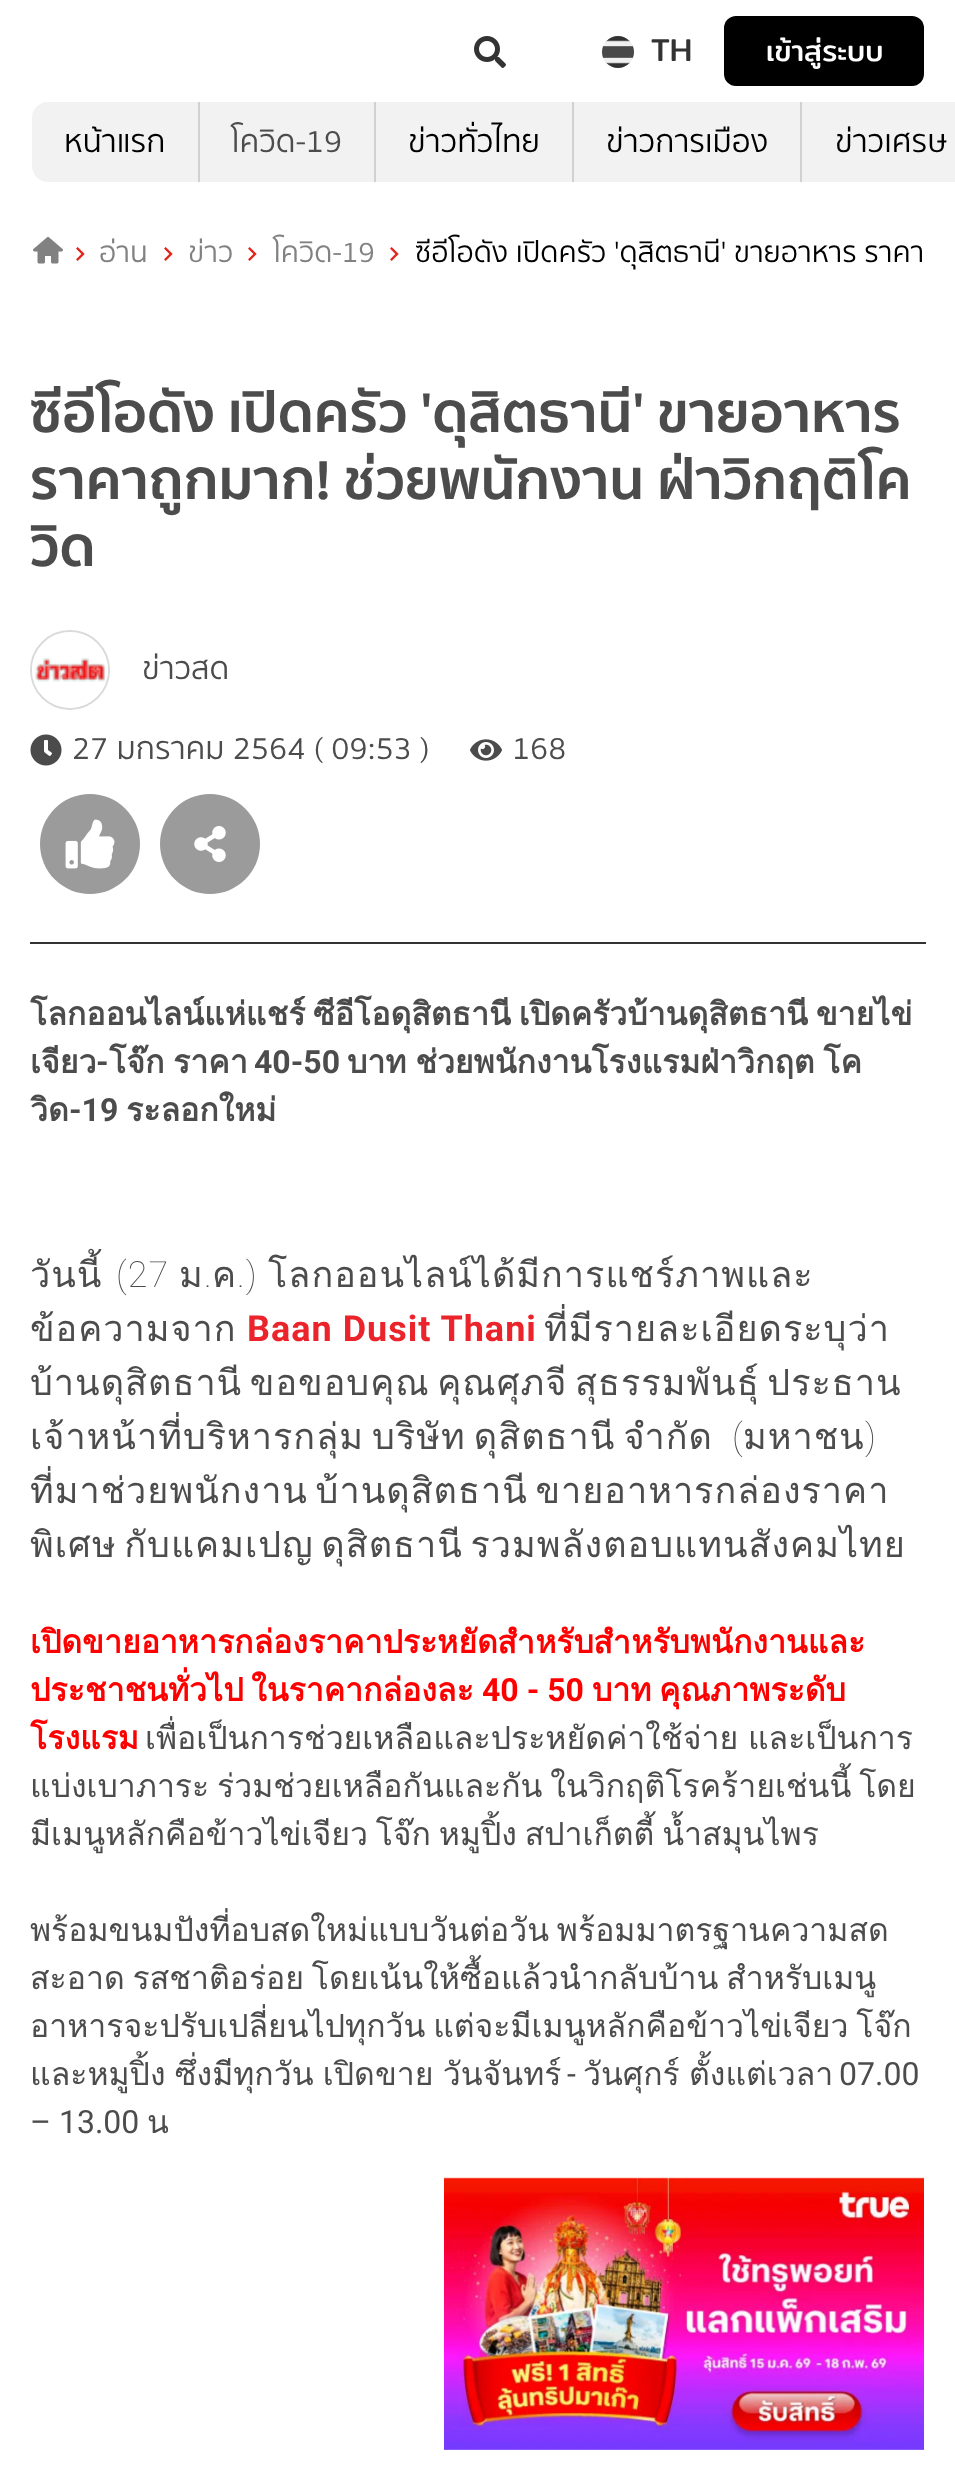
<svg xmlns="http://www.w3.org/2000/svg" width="955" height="2481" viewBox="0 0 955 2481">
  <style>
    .t1 { font: 32px Mitr; fill: #333; }
    .t2 { font: 29px Mitr; fill: #fff; }
    .t3 { font: 32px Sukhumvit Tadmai; fill: #000; }
    .t4 { font: 32px Sukhumvit Tadmai; fill: #4c4c4c; }
    .t5 { font: 29.4px Sukhumvit Tadmai; fill: #818181; }
    .t6 { font: 29.4px Sukhumvit Tadmai; fill: #000; }
    .t7 { font: bold 56px Sukhumvit Tadmai; fill: #4c4c4c; }
    .t8 { font: bold 32px Loma; fill: #4c4c4c; }
    .t9 { font: bold 32px Roboto; fill: #4c4c4c; }
    .t10 { font: 36px Loma; letter-spacing: 1px; fill: #4c4c4c; }
    .t11 { font: 100 36px Roboto; letter-spacing: 1px; fill: #4c4c4c; }
    .t12 { font: bold 36px Roboto; letter-spacing: 1px; fill: #eb232a; }
    .t13 { font: bold 32px Loma; fill: #f00; }
    .t14 { font: bold 32px Roboto; fill: #f00; }
    .t15 { font: 32px Loma; fill: #4c4c4c; }
    .t16 { font: 32px Roboto; fill: #4c4c4c; }
  </style>
  <rect width="100%" height="100%" fill="#fff"/>
  <image x="474" y="36" width="32" height="32" href="images/1.png"/>
  <circle cx="618" cy="52" r="16" fill="#efefef"/>
  <image x="602" y="36" width="32" height="32" href="images/2.png"/>
  <text x="651" y="61" class="t1">TH</text>
  <rect x="724" y="16" width="200" height="70" rx="12" fill="#000"/>
  <text x="766" y="61" class="t2">เข้าสู่ระบบ</text>
  <path d="M48 102H198V182H48C39 182 32 175 32 166V118C32 109 39 102 48 102Z" fill="#f2f2f2"/>
  <text x="64" y="152" class="t3">หน้าแรก</text>
  <rect x="200" y="102" width="174" height="80" fill="#f2f2f2"/>
  <rect x="198" y="102" width="2" height="80" fill="#d1d1d1"/>
  <text x="231" y="152" class="t4">โควิด-19</text>
  <rect x="376" y="102" width="196" height="80" fill="#f2f2f2"/>
  <rect x="374" y="102" width="2" height="80" fill="#d1d1d1"/>
  <text x="408" y="152" class="t3">ข่าวทั่วไทย</text>
  <rect x="574" y="102" width="226" height="80" fill="#f2f2f2"/>
  <rect x="572" y="102" width="2" height="80" fill="#d1d1d1"/>
  <text x="606" y="152" class="t3">ข่าวการเมือง</text>
  <rect x="802" y="102" width="153" height="80" fill="#f2f2f2"/>
  <rect x="800" y="102" width="2" height="80" fill="#d1d1d1"/>
  <text x="835" y="152" class="t3">ข่าวเศรษ</text>
  <image x="33" y="236" width="30" height="28" href="images/3.png"/>
  <image x="76" y="247" width="9" height="14" href="images/4.png"/>
  <text x="99" y="262" class="t5">อ่าน</text>
  <image x="164" y="247" width="9" height="14" href="images/4.png"/>
  <text x="188" y="262" class="t5">ข่าว</text>
  <image x="248" y="247" width="9" height="14" href="images/4.png"/>
  <text x="273" y="262" class="t5">โควิด-19</text>
  <image x="390" y="247" width="9" height="14" href="images/4.png"/>
  <text x="415" y="262" class="t6">ซีอีโอดัง เปิดครัว 'ดุสิตธานี' ขายอาหาร ราคา</text>
  <rect x="30" y="942" width="896" height="2" fill="#333"/>
  <text x="30" y="432" class="t7">ซีอีโอดัง เปิดครัว 'ดุสิตธานี' ขายอาหาร</text>
  <text x="30" y="499" class="t7">ราคาถูกมาก! ช่วยพนักงาน ฝ่าวิกฤติโค</text>
  <text x="30" y="566" class="t7">วิด</text>
  <circle cx="70" cy="670" r="39" fill="none" stroke="#dadada" stroke-width="2"/>
  <image x="32" y="632" width="76" height="76" href="images/5.png"/>
  <text x="142" y="679" class="t4">ข่าวสด</text>
  <image x="30" y="734" width="32" height="32" href="images/6.png"/>
  <text x="72" y="759" class="t4">27 มกราคม 2564 ( 09:53 )</text>
  <image x="470" y="739" width="32" height="22" href="images/7.png"/>
  <text x="512" y="759" class="t4">168</text>
  <circle cx="90" cy="844" r="50" fill="#9b9b9b"/>
  <image x="65" y="819" width="50" height="50" href="images/8.png"/>
  <circle cx="210" cy="844" r="50" fill="#9b9b9b"/>
  <image x="194" y="826" width="32" height="36" href="images/9.png"/>
  <text x="30" y="1025" word-spacing="-3" class="t8">โลกออนไลน์แห่แชร์ ซีอีโอดุสิตธานี เปิดครัวบ้านดุสิตธานี ขายไข่</text>
  <text x="30" y="1073" class="t8">เจียว</text>
  <text x="96" y="1073" class="t9">-</text>
  <text x="109" y="1073" word-spacing="-2" class="t8">โจ๊ก ราคา</text>
  <text x="254" y="1073" class="t9">40-50</text>
  <text x="347" y="1073" word-spacing="-2" class="t8">บาท ช่วยพนักงานโรงแรมฝ่าวิกฤต โค</text>
  <text x="30" y="1121" class="t8">วิด</text>
  <text x="69" y="1121" class="t9">-19</text>
  <text x="126" y="1121" class="t8">ระลอกใหม่</text>
  <text x="30" y="1287" class="t10">วันนี้</text>
  <text x="116" y="1287" class="t11">(27</text>
  <text x="179" y="1287" class="t10">ม</text>
  <text x="204" y="1287" class="t11">.</text>
  <text x="212" y="1287" class="t10">ค</text>
  <text x="237" y="1287" class="t11">.)</text>
  <text x="268" y="1287" class="t10">โลกออนไลน์ได้มีการแชร์ภาพและ</text>
  <text x="30" y="1341" class="t10">ข้อความจาก</text>
  <text x="247" y="1341" class="t12">Baan Dusit Thani</text>
  <text x="544" y="1341" class="t10">ที่มีรายละเอียดระบุว่า</text>
  <text x="30" y="1395" word-spacing="-5.5" class="t10">บ้านดุสิตธานี ขอขอบคุณ คุณศุภจี สุธรรมพันธุ์ ประธาน</text>
  <text x="30" y="1449" word-spacing="-5" class="t10">เจ้าหน้าที่บริหารกลุ่ม บริษัท ดุสิตธานี จำกัด</text>
  <text x="732" y="1449" class="t11">(</text>
  <text x="743" y="1449" class="t10">มหาชน</text>
  <text x="865" y="1449" class="t11">)</text>
  <text x="30" y="1503" word-spacing="-5.5" class="t10">ที่มาช่วยพนักงาน บ้านดุสิตธานี ขายอาหารกล่องราคา</text>
  <text x="30" y="1557" word-spacing="-5.5" class="t10">พิเศษ กับแคมเปญ ดุสิตธานี รวมพลังตอบแทนสังคมไทย</text>
  <text x="30" y="1653" class="t13">เปิดขายอาหารกล่องราคาประหยัดสำหรับสำหรับพนักงานและ</text>
  <text x="30" y="1701" class="t13">ประชาชนทั่วไป</text>
  <text x="251" y="1701" class="t13">ในราคากล่องละ</text>
  <text x="482" y="1701" class="t14">40 - 50</text>
  <text x="592" y="1701" class="t13">บาท</text>
  <text x="659" y="1701" class="t13">คุณภาพระดับ</text>
  <text x="30" y="1749" class="t13">โรงแรม</text>
  <text x="145" y="1749" word-spacing="-1" class="t15">เพื่อเป็นการช่วยเหลือและประหยัดค่าใช้จ่าย และเป็นการ</text>
  <text x="30" y="1797" word-spacing="-3" class="t15">แบ่งเบาภาระ ร่วมช่วยเหลือกันและกัน ในวิกฤติโรคร้ายเช่นนี้ โดย</text>
  <text x="30" y="1845" word-spacing="-3" class="t15">มีเมนูหลักคือข้าวไข่เจียว โจ๊ก หมูปิ้ง สปาเก็ตตี้ น้ำสมุนไพร</text>
  <text x="30" y="1941" word-spacing="-3" class="t15">พร้อมขนมปังที่อบสดใหม่แบบวันต่อวัน พร้อมมาตรฐานความสด</text>
  <text x="30" y="1989" word-spacing="-3" class="t15">สะอาด รสชาติอร่อย โดยเน้นให้ซื้อแล้วนำกลับบ้าน สำหรับเมนู</text>
  <text x="30" y="2037" word-spacing="-3" class="t15">อาหารจะปรับเปลี่ยนไปทุกวัน แต่จะมีเมนูหลักคือข้าวไข่เจียว โจ๊ก</text>
  <text x="30" y="2085" word-spacing="-1.5" class="t15">และหมูปิ้ง ซึ่งมีทุกวัน เปิดขาย วันจันทร์</text>
  <text x="567" y="2085" class="t16">-</text>
  <text x="583" y="2085" word-spacing="-1.5" class="t15">วันศุกร์ ตั้งแต่เวลา</text>
  <text x="839" y="2085" class="t16">07.00</text>
  <text x="30" y="2133" class="t16">– 13.00</text>
  <text x="147" y="2133" class="t15">น</text>
  <image x="444" y="2177" width="480" height="273" href="images/10.png"/>
</svg>
